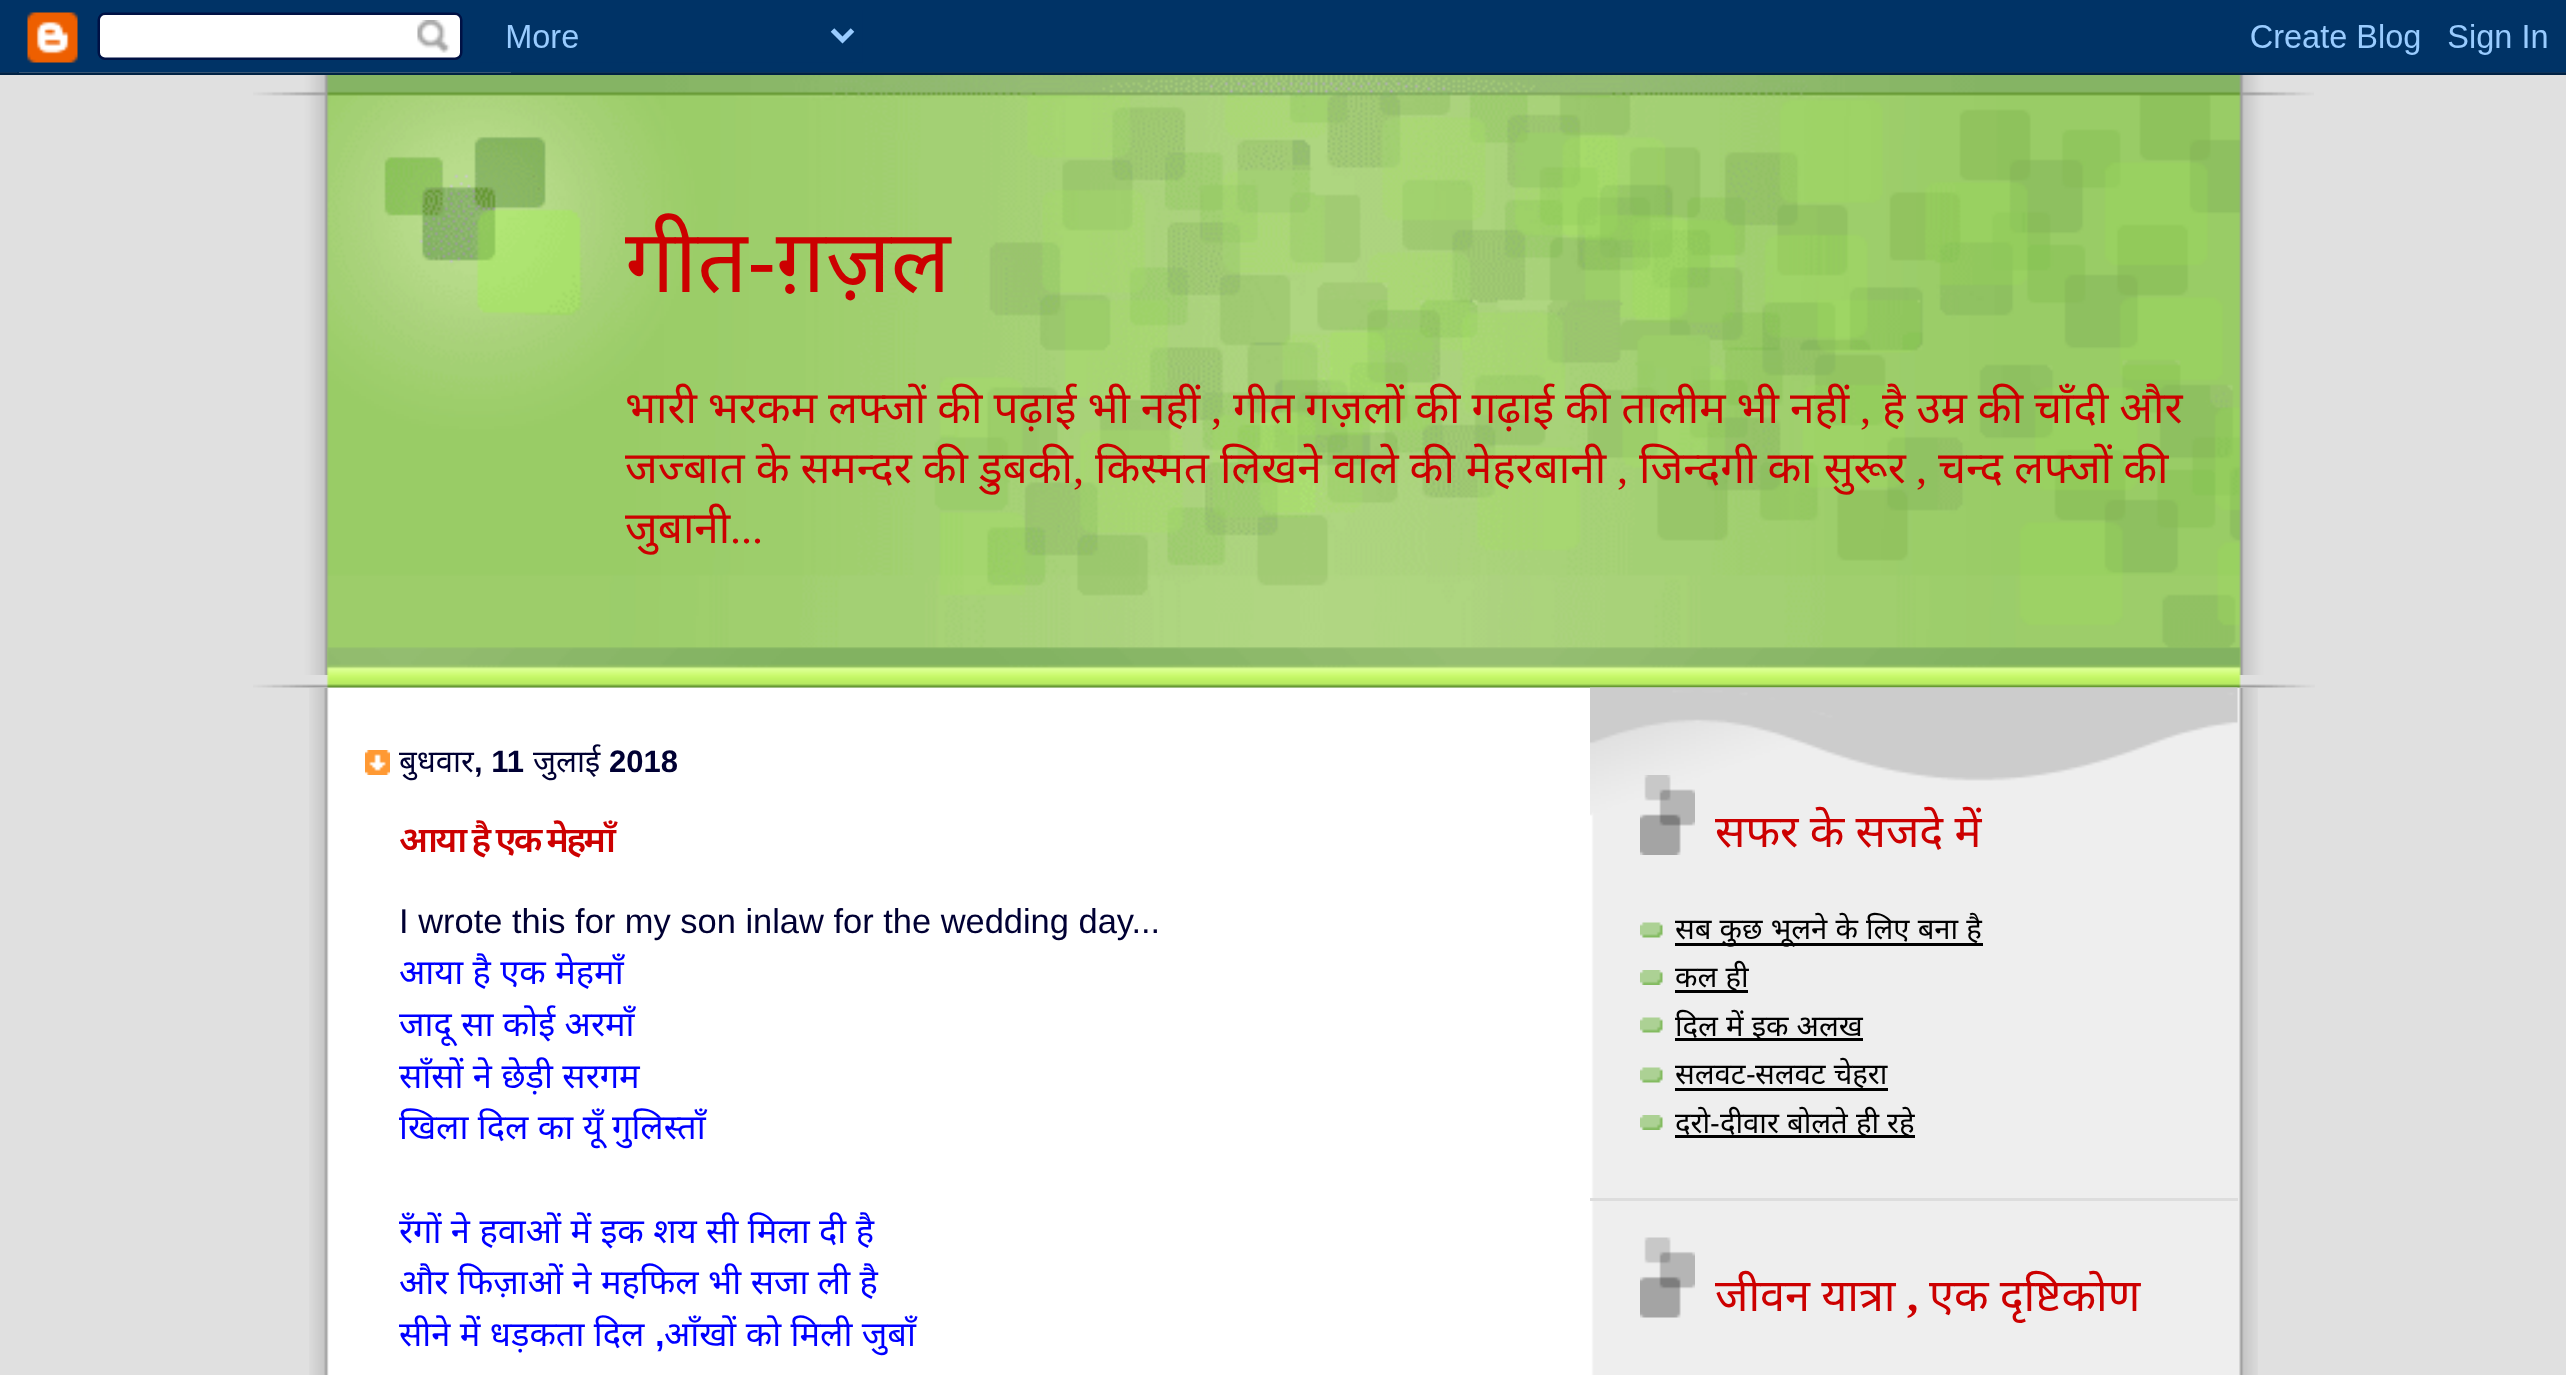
<svg xmlns="http://www.w3.org/2000/svg" width="2566" height="1375" viewBox="0 0 2566 1375">
  <style>
    .t1 { font: 88px Noto Sans; fill: #c00; }
    .t2 { font: 44.1px Noto Sans; fill: #c00; }
    .t3 { font: 44.1px Liberation Serif; fill: #c00; }
    .t4 { font: 31px Noto Sans; fill: #003; }
    .t5 { font: bold 31px Liberation Sans; fill: #003; }
    .t6 { font: 600 35.5px Noto Sans; letter-spacing: -2.5px; fill: #c00; }
    .t7 { font: 34.45px Liberation Sans; fill: #003; }
    .t8 { font: 34.45px Noto Sans; fill: #00f; }
    .t9 { font: bold 34.45px Liberation Sans; fill: #00f; }
    .t10 { font: 45px Noto Sans; fill: #c00; }
    .t11 { font: 29.25px Noto Sans; fill: #000; }
    .t12 { font: 29.25px Liberation Sans; fill: #000; }
    .t13 { font: bold 45px Liberation Serif; fill: #c00; }
  </style>
  <rect width="100%" height="100%" fill="#e0e0e0"/>
  <image x="0" y="0" width="2566" height="75" href="images/1.png"/>
  <image x="309" y="688" width="1949" height="687" href="images/2.png"/>
  <image x="253" y="75" width="2061" height="600" href="images/3.png"/>
  <image x="253" y="647" width="2062" height="41" href="images/4.png"/>
  <text x="625" y="292" class="t1">गीत-ग़ज़ल</text>
  <text x="625" y="423" word-spacing="-0.5" class="t2">भारी भरकम लफ्जों की पढ़ाई भी नहीं</text>
  <text x="1211" y="423" class="t3">,</text>
  <text x="1233" y="423" word-spacing="-0.5" class="t2">गीत गज़लों की गढ़ाई की तालीम भी नहीं</text>
  <text x="1860" y="423" class="t3">,</text>
  <text x="1882" y="423" word-spacing="-0.5" class="t2">है उम्र की चाँदी और</text>
  <text x="625" y="483" word-spacing="-0.5" class="t2">जज्बात के समन्दर की डुबकी</text>
  <text x="1073" y="483" class="t3">,</text>
  <text x="1095" y="483" word-spacing="-0.5" class="t2">किस्मत लिखने वाले की मेहरबानी</text>
  <text x="1617" y="483" class="t3">,</text>
  <text x="1639" y="483" word-spacing="-0.5" class="t2">जिन्दगी का सुरूर</text>
  <text x="1916" y="483" class="t3">,</text>
  <text x="1938" y="483" word-spacing="-0.5" class="t2">चन्द लफ्जों की</text>
  <text x="625" y="543" class="t2">जुबानी</text>
  <text x="730" y="543" class="t3">...</text>
  <image x="365" y="750" width="25" height="25" href="images/5.png"/>
  <text x="399" y="772" class="t4">बुधवार</text>
  <text x="474" y="772" class="t5">, 11</text>
  <text x="533" y="772" class="t4">जुलाई</text>
  <text x="609" y="772" class="t5">2018</text>
  <text x="399" y="852" class="t6">आया है एक मेहमाँ</text>
  <text x="399" y="933" class="t7">I wrote this for my son inlaw for the wedding day...</text>
  <text x="399" y="984" word-spacing="0.5" class="t8">आया है एक मेहमाँ</text>
  <text x="399" y="1036" word-spacing="0.5" class="t8">जादू सा कोई अरमाँ</text>
  <text x="399" y="1088" word-spacing="0.5" class="t8">साँसों ने छेड़ी सरगम</text>
  <text x="399" y="1139" word-spacing="0.5" class="t8">खिला दिल का यूँ गुलिस्ताँ</text>
  <text x="399" y="1243" word-spacing="0.5" class="t8">रँगों ने हवाओं में इक शय सी मिला दी है</text>
  <text x="399" y="1294" word-spacing="0.5" class="t8">और फिज़ाओं ने महफिल भी सजा ली है</text>
  <text x="399" y="1346" word-spacing="0.5" class="t8">सीने में धड़कता दिल</text>
  <text x="655" y="1346" class="t9">,</text>
  <text x="664" y="1346" word-spacing="0.5" class="t8">आँखों को मिली जुबाँ</text>
  <image x="1590" y="687" width="648" height="129" href="images/6.png"/>
  <rect x="1590" y="1198" width="648" height="3" fill="#ddd"/>
  <image x="1640" y="775" width="55" height="80" href="images/7.png"/>
  <text x="1715" y="847" word-spacing="-0.5" class="t10">सफर के सजदे में</text>
  <image x="1640" y="922" width="23" height="16" href="images/8.png"/>
  <rect x="1675" y="943" width="308" height="3" fill="#000"/>
  <text x="1675" y="939" word-spacing="0.5" class="t11">सब कुछ भूलने के लिए बना है</text>
  <image x="1640" y="970" width="23" height="15" href="images/9.png"/>
  <rect x="1675" y="990" width="73" height="3" fill="#000"/>
  <text x="1675" y="987" word-spacing="0.5" class="t11">कल ही</text>
  <image x="1640" y="1017" width="23" height="16" href="images/8.png"/>
  <rect x="1675" y="1038" width="188" height="3" fill="#000"/>
  <text x="1675" y="1036" word-spacing="0.5" class="t11">दिल में इक अलख</text>
  <image x="1640" y="1067" width="23" height="16" href="images/8.png"/>
  <text x="1675" y="1084" class="t11">सलवट</text>
  <text x="1746" y="1084" class="t12">-</text>
  <rect x="1675" y="1088" width="213" height="3" fill="#000"/>
  <text x="1755" y="1084" word-spacing="0.5" class="t11">सलवट चेहरा</text>
  <image x="1640" y="1115" width="23" height="15" href="images/9.png"/>
  <text x="1675" y="1133" class="t11">दरो</text>
  <text x="1710" y="1133" class="t12">-</text>
  <rect x="1675" y="1135" width="240" height="3" fill="#000"/>
  <text x="1720" y="1133" word-spacing="0.5" class="t11">दीवार बोलते ही रहे</text>
  <image x="1640" y="1237" width="55" height="81" href="images/10.png"/>
  <text x="1715" y="1311" word-spacing="-0.5" class="t10">जीवन यात्रा</text>
  <text x="1907" y="1311" class="t13">,</text>
  <text x="1929" y="1311" word-spacing="-0.5" class="t10">एक दृष्टिकोण</text>
</svg>
